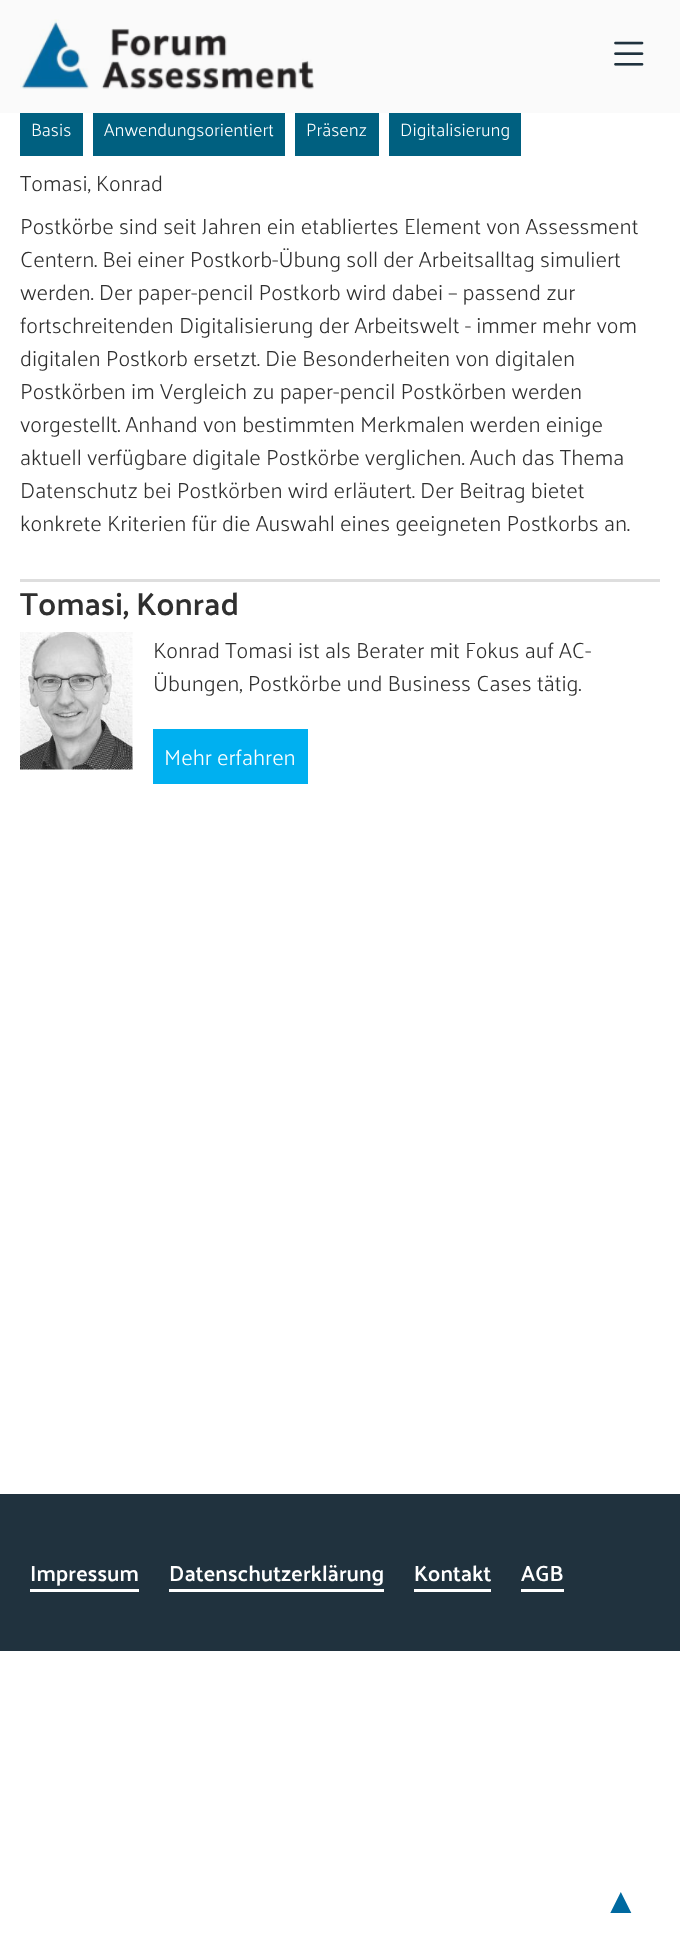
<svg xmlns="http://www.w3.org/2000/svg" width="680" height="1933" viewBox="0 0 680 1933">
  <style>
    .t1 { font: 300 18px Palanquin; fill: #fff; }
    .t2 { font: 300 22px Palanquin; fill: #303030; }
    .t3 { font: 600 32px Palanquin; fill: #303030; }
    .t4 { font: 300 22px Palanquin; fill: #fff; }
    .t5 { font: 600 22px Palanquin; fill: #fff; }
    .t6 { font: 36px Liberation Sans; fill: #0069a0; }
  </style>
  <rect width="100%" height="100%" fill="#fff"/>
  <rect x="0" y="0" width="680" height="113" fill="#fafafa"/>
  <image x="20" y="19" width="294" height="71" href="images/1.png"/>
  <image x="614" y="41" width="30" height="25" href="images/2.png"/>
  <rect x="20" y="113" width="63" height="43" fill="#006080"/>
  <text x="31" y="136" class="t1">Basis</text>
  <rect x="93" y="113" width="192" height="43" fill="#006080"/>
  <text x="104" y="136" class="t1">Anwendungsorientiert</text>
  <rect x="295" y="113" width="84" height="43" fill="#006080"/>
  <text x="306" y="136" class="t1">Präsenz</text>
  <rect x="389" y="113" width="132" height="43" fill="#006080"/>
  <text x="400" y="136" class="t1">Digitalisierung</text>
  <text x="20" y="191" class="t2">Tomasi, Konrad</text>
  <text x="20" y="234" class="t2">Postkörbe sind seit Jahren ein etabliertes Element von Assessment</text>
  <text x="20" y="267" class="t2">Centern. Bei einer Postkorb-Übung soll der Arbeitsalltag simuliert</text>
  <text x="20" y="300" class="t2">werden. Der paper-pencil Postkorb wird dabei – passend zur</text>
  <text x="20" y="333" class="t2">fortschreitenden Digitalisierung der Arbeitswelt - immer mehr vom</text>
  <text x="20" y="366" class="t2">digitalen Postkorb ersetzt. Die Besonderheiten von digitalen</text>
  <text x="20" y="399" class="t2">Postkörben im Vergleich zu paper-pencil Postkörben werden</text>
  <text x="20" y="432" class="t2">vorgestellt. Anhand von bestimmten Merkmalen werden einige</text>
  <text x="20" y="465" class="t2">aktuell verfügbare digitale Postkörbe verglichen. Auch das Thema</text>
  <text x="20" y="498" class="t2">Datenschutz bei Postkörben wird erläutert. Der Beitrag bietet</text>
  <text x="20" y="531" class="t2">konkrete Kriterien für die Auswahl eines geeigneten Postkorbs an.</text>
  <rect x="20" y="579" width="640" height="3" fill="#dedede"/>
  <text x="20" y="615" class="t3">Tomasi, Konrad</text>
  <image x="20" y="632" width="113" height="138" href="images/3.png"/>
  <text x="153" y="658" class="t2">Konrad Tomasi ist als Berater mit Fokus auf AC-</text>
  <text x="153" y="691" class="t2">Übungen, Postkörbe und Business Cases tätig.</text>
  <rect x="153" y="729" width="155" height="55" fill="#00b0f0"/>
  <text x="164" y="765" class="t4">Mehr erfahren</text>
  <rect x="0" y="1494" width="680" height="157" fill="#20323e"/>
  <text x="30" y="1581" class="t5">Impressum</text>
  <rect x="30" y="1589" width="109" height="3" fill="#fff"/>
  <text x="169" y="1581" class="t5">Datenschutzerklärung</text>
  <rect x="169" y="1589" width="215" height="3" fill="#fff"/>
  <text x="414" y="1581" class="t5">Kontakt</text>
  <rect x="414" y="1589" width="77" height="3" fill="#fff"/>
  <text x="521" y="1581" class="t5">AGB</text>
  <rect x="521" y="1589" width="43" height="3" fill="#fff"/>
  <text x="603" y="1913" class="t6">▲</text>
</svg>
